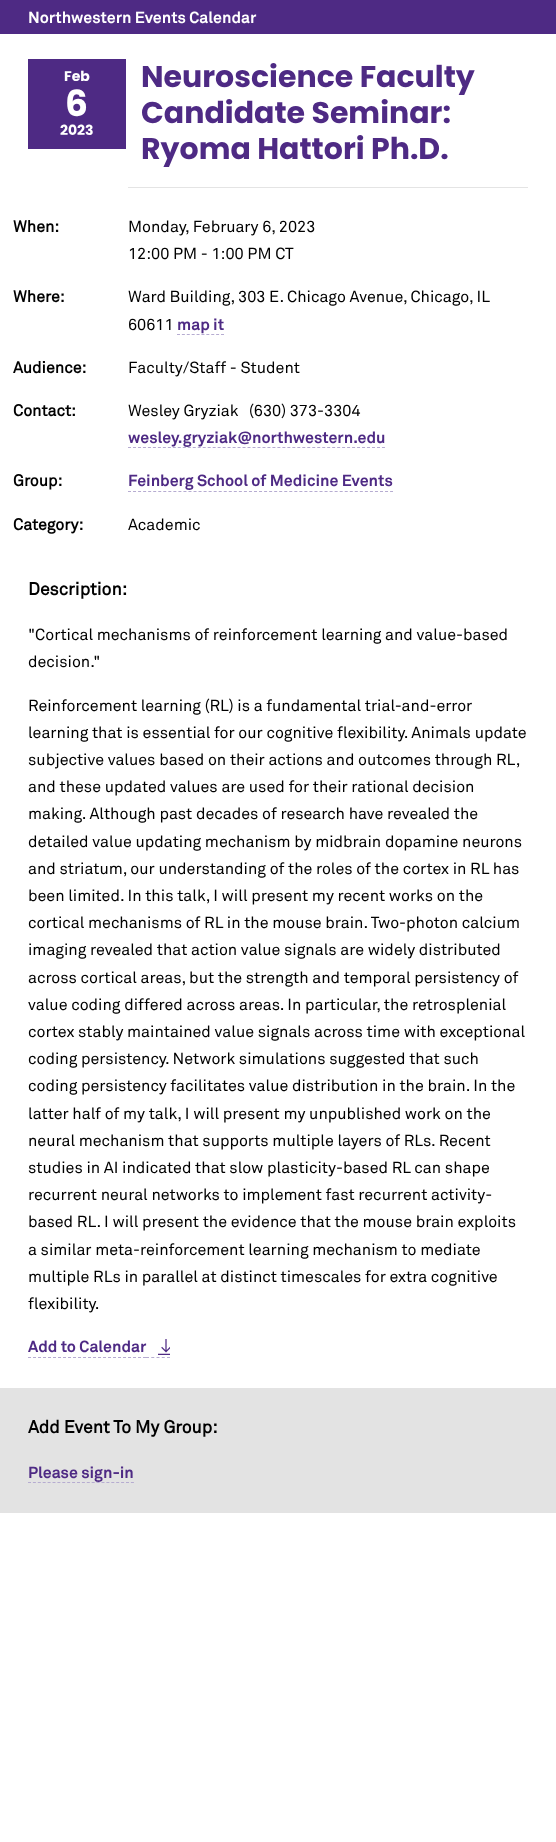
<svg xmlns="http://www.w3.org/2000/svg" width="556" height="1842" viewBox="0 0 556 1842">
  <style>
    .t1 { font: bold 16px 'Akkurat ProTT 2'; fill: #fff; }
    .t2 { font: bold 14px Poppins; fill: #fff; }
    .t3 { font: bold 36px Poppins; fill: #fff; }
    .t4 { font: bold 30px Poppins; fill: #4e2a84; }
    .t5 { font: bold 16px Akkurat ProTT; fill: #000; }
    .t6 { font: 16px Akkurat ProTT; fill: #000; }
    .t7 { font: bold 16px 'Akkurat ProTT 2'; fill: #4e2a84; }
    .t8 { font: bold 17.6px Akkurat ProTT; fill: #000; }
  </style>
  <rect width="100%" height="100%" fill="#fff"/>
  <rect x="0" y="0" width="556" height="34" fill="#4e2a84"/>
  <text x="28" y="23" class="t1">Northwestern Events Calendar</text>
  <rect x="28" y="59" width="98" height="90" fill="#4e2a84"/>
  <text x="64" y="81" class="t2">Feb</text>
  <text x="65" y="116" class="t3">6</text>
  <text x="60" y="135" class="t2">2023</text>
  <text x="141" y="87" class="t4">Neuroscience Faculty</text>
  <text x="141" y="123" class="t4">Candidate Seminar:</text>
  <text x="141" y="159" class="t4">Ryoma Hattori Ph.D.</text>
  <rect x="128" y="187" width="400" height="1" fill="#e4e4e4"/>
  <text x="13" y="232" class="t5">When:</text>
  <text x="128" y="232" class="t6">Monday, February 6, 2023</text>
  <text x="128" y="259" class="t6">12:00 PM - 1:00 PM CT</text>
  <text x="13" y="302" class="t5">Where:</text>
  <text x="128" y="302" class="t6">Ward Building, 303 E. Chicago Avenue, Chicago, IL</text>
  <text x="128" y="330" class="t6">60611</text>
  <text x="177" y="330" class="t7">map it</text>
  <path d="M177 334.5H224" fill="none" stroke="#b6acd1" stroke-dasharray="3 1.89"/>
  <text x="13" y="373" class="t5">Audience:</text>
  <text x="128" y="373" class="t6">Faculty/Staff - Student</text>
  <text x="13" y="416" class="t5">Contact:</text>
  <text x="128" y="416" class="t6">Wesley Gryziak</text>
  <text x="249" y="416" class="t6">(630) 373-3304</text>
  <text x="128" y="443" class="t7">wesley.gryziak@northwestern.edu</text>
  <path d="M128 447.5H385" fill="none" stroke="#b6acd1" stroke-dasharray="3 1.98"/>
  <text x="13" y="486" class="t5">Group:</text>
  <text x="128" y="486" class="t7">Feinberg School of Medicine Events</text>
  <path d="M128 491.5H393" fill="none" stroke="#b6acd1" stroke-dasharray="3 2.04"/>
  <text x="13" y="530" class="t5">Category:</text>
  <text x="128" y="530" class="t6">Academic</text>
  <text x="28" y="595" class="t8">Description:</text>
  <text x="28" y="640" class="t6">"Cortical mechanisms of reinforcement learning and value-based</text>
  <text x="28" y="667" class="t6">decision."</text>
  <text x="28" y="711" class="t6">Reinforcement learning (RL) is a fundamental trial-and-error</text>
  <text x="28" y="738" class="t6">learning that is essential for our cognitive flexibility. Animals update</text>
  <text x="28" y="765" class="t6">subjective values based on their actions and outcomes through RL,</text>
  <text x="28" y="792" class="t6">and these updated values are used for their rational decision</text>
  <text x="28" y="819" class="t6">making. Although past decades of research have revealed the</text>
  <text x="28" y="847" class="t6">detailed value updating mechanism by midbrain dopamine neurons</text>
  <text x="28" y="874" class="t6">and striatum, our understanding of the roles of the cortex in RL has</text>
  <text x="28" y="901" class="t6">been limited. In this talk, I will present my recent works on the</text>
  <text x="28" y="928" class="t6">cortical mechanisms of RL in the mouse brain. Two-photon calcium</text>
  <text x="28" y="955" class="t6">imaging revealed that action value signals are widely distributed</text>
  <text x="28" y="983" class="t6">across cortical areas, but the strength and temporal persistency of</text>
  <text x="28" y="1010" class="t6">value coding differed across areas. In particular, the retrosplenial</text>
  <text x="28" y="1037" class="t6">cortex stably maintained value signals across time with exceptional</text>
  <text x="28" y="1064" class="t6">coding persistency. Network simulations suggested that such</text>
  <text x="28" y="1091" class="t6">coding persistency facilitates value distribution in the brain. In the</text>
  <text x="28" y="1119" class="t6">latter half of my talk, I will present my unpublished work on the</text>
  <text x="28" y="1146" class="t6">neural mechanism that supports multiple layers of RLs. Recent</text>
  <text x="28" y="1173" class="t6">studies in AI indicated that slow plasticity-based RL can shape</text>
  <text x="28" y="1200" class="t6">recurrent neural networks to implement fast recurrent activity-</text>
  <text x="28" y="1227" class="t6">based RL. I will present the evidence that the mouse brain exploits</text>
  <text x="28" y="1255" class="t6">a similar meta-reinforcement learning mechanism to mediate</text>
  <text x="28" y="1282" class="t6">multiple RLs in parallel at distinct timescales for extra cognitive</text>
  <text x="28" y="1309" class="t6">flexibility.</text>
  <text x="28" y="1352" class="t7">Add to Calendar</text>
  <path d="M28 1357.5H146" fill="none" stroke="#b6acd1" stroke-dasharray="3 2"/>
  <path d="M146 1357.5H170" fill="none" stroke="#b6acd1" stroke-dasharray="3 2.25"/>
  <image x="158" y="1339" width="12" height="16" href="images/1.png"/>
  <rect x="0" y="1388" width="556" height="125" fill="#e3e3e3"/>
  <text x="28" y="1433" class="t8">Add Event To My Group:</text>
  <text x="28" y="1478" class="t7">Please sign-in</text>
  <path d="M28 1482.5H134" fill="none" stroke="#b6acd1" stroke-dasharray="3 1.9"/>
</svg>
